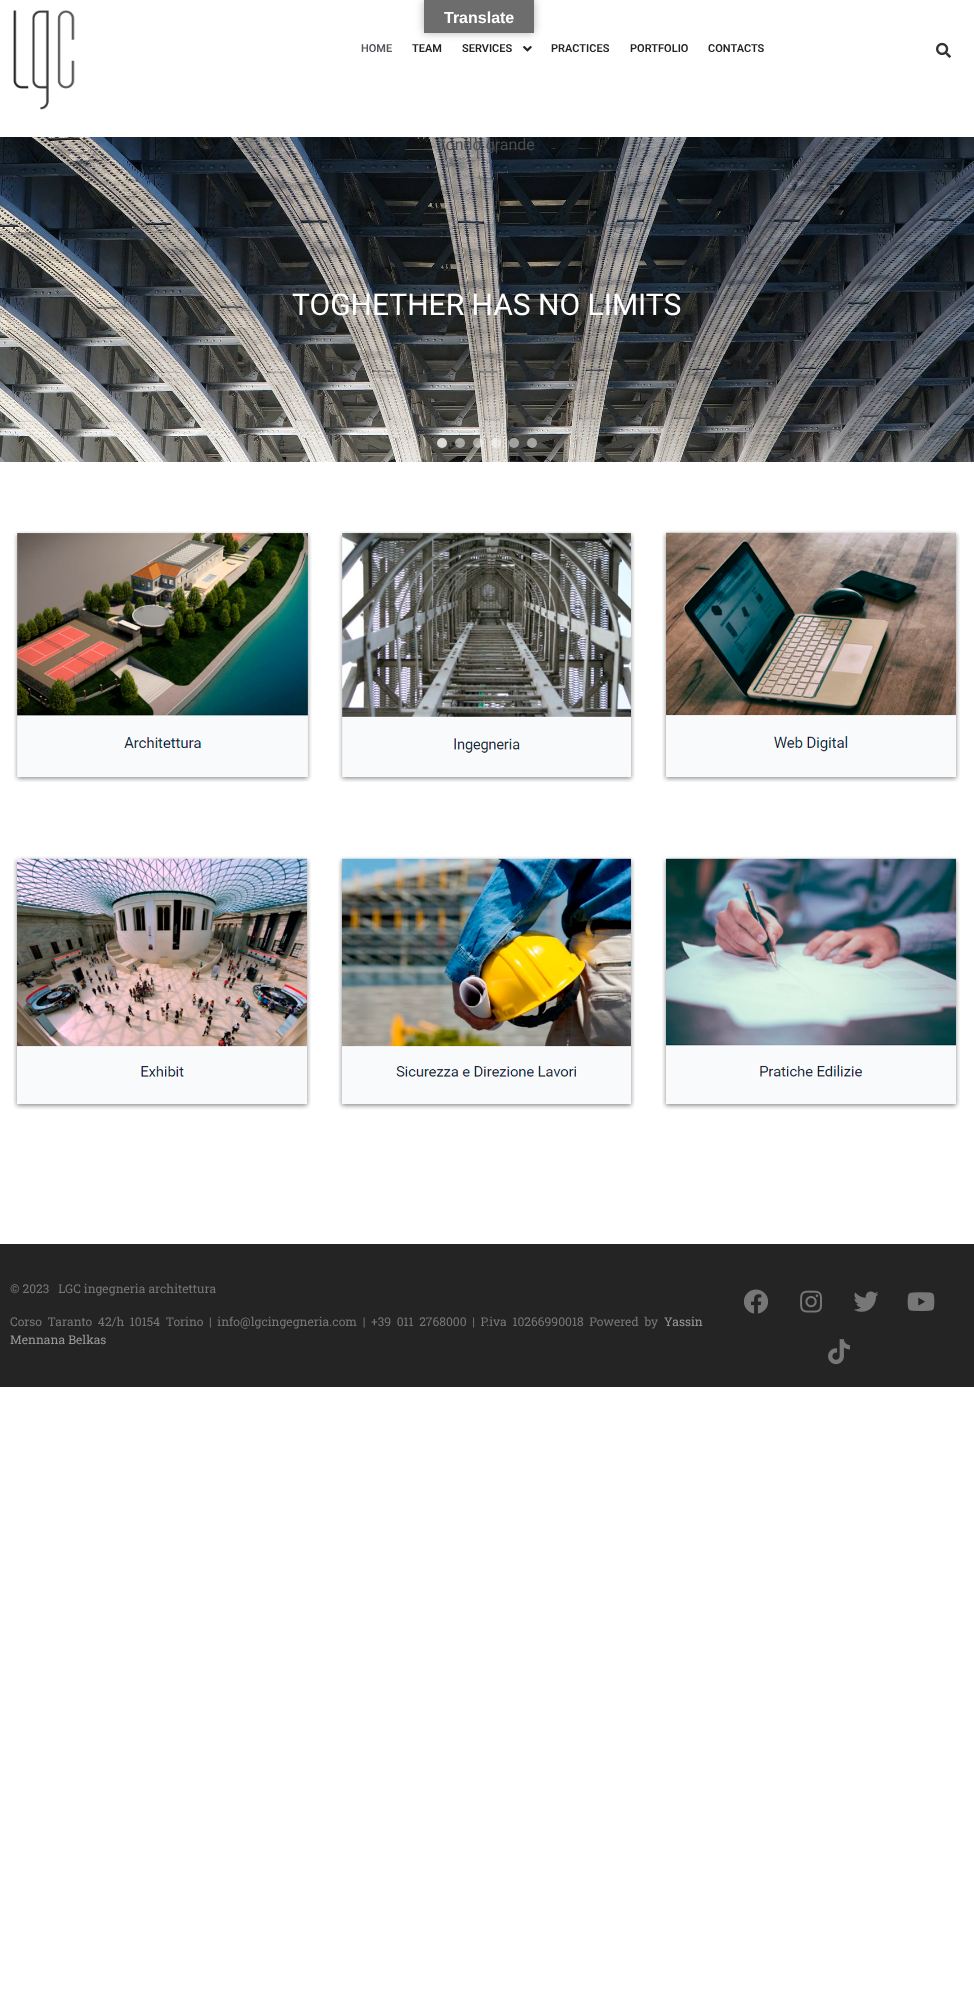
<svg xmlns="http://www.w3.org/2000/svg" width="974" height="1996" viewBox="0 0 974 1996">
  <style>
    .t1 { font: bold 16px Liberation Sans; fill: #fff; }
    .t2 { font: 600 11px Roboto; fill: #54595f; }
    .t3 { font: 600 11px Roboto; fill: #242424; }
    .t4 { font: 16px Roboto; fill: #494c4f; }
    .t5 { font: 30px Roboto; fill: #fff; }
    .t6 { font: 12.12px Roboto Slab; fill: #777; }
    .t7 { font: 12.12px Roboto Slab; fill: #999; }
  </style>
  <rect width="100%" height="100%" fill="#fff"/>
  <image x="523" y="46" width="9" height="6" href="images/2.png"/>
  <rect x="424" y="0" width="110" height="33" fill="#0000004d" filter="blur(4.5px)"/>
  <rect x="424" y="0" width="110" height="33" fill="#6d6d6d"/>
  <text x="444" y="23" class="t1">Translate</text>
  <image x="13" y="10" width="62" height="100" href="images/1.png"/>
  <text x="361" y="52" class="t2">HOME</text>
  <text x="412" y="52" class="t3">TEAM</text>
  <text x="462" y="52" class="t3">SERVICES</text>
  <text x="551" y="52" class="t3">PRACTICES</text>
  <text x="630" y="52" class="t3">PORTFOLIO</text>
  <text x="708" y="52" class="t3">CONTACTS</text>
  <image x="936" y="42" width="15" height="16" href="images/3.png"/>
  <image x="0" y="137" width="974" height="325" href="images/4.png"/>
  <text x="440" y="150" class="t4">fondo grande</text>
  <text x="292" y="315" class="t5">TOGHETHER HAS NO LIMITS</text>
  <circle cx="442" cy="443" r="5" fill="#ffffffcc"/>
  <circle cx="460" cy="443" r="5" fill="#ffffff80"/>
  <circle cx="478" cy="443" r="5" fill="#ffffff80"/>
  <circle cx="496" cy="443" r="5" fill="#ffffff80"/>
  <circle cx="514" cy="443" r="5" fill="#ffffff80"/>
  <circle cx="532" cy="443" r="5" fill="#ffffff80"/>
  <image x="13" y="531" width="299" height="251" href="images/5.png"/>
  <image x="338" y="531" width="297" height="251" href="images/6.png"/>
  <image x="662" y="530" width="298" height="252" href="images/7.png"/>
  <image x="13" y="856" width="298" height="254" href="images/8.png"/>
  <image x="338" y="856" width="297" height="254" href="images/9.png"/>
  <image x="662" y="856" width="298" height="254" href="images/10.png"/>
  <rect x="0" y="1244" width="974" height="143" fill="#242424"/>
  <text x="10" y="1293" class="t6" xml:space="preserve">© 2023   LGC ingegneria architettura</text>
  <text x="10" y="1326" word-spacing="2.6" class="t6">Corso Taranto 42/h 10154 Torino | info@lgcingegneria.com | +39 011 2768000 | P.iva 10266990018 Powered by</text>
  <text x="664" y="1326" class="t7">Yassin</text>
  <text x="10" y="1344" class="t7">Mennana Belkas</text>
  <image x="743" y="1289" width="26" height="25" href="images/11.png"/>
  <image x="800" y="1290" width="22" height="23" href="images/12.png"/>
  <image x="853" y="1291" width="26" height="21" href="images/13.png"/>
  <image x="907" y="1292" width="28" height="19" href="images/14.png"/>
  <image x="828" y="1339" width="22" height="26" href="images/15.png"/>
</svg>
